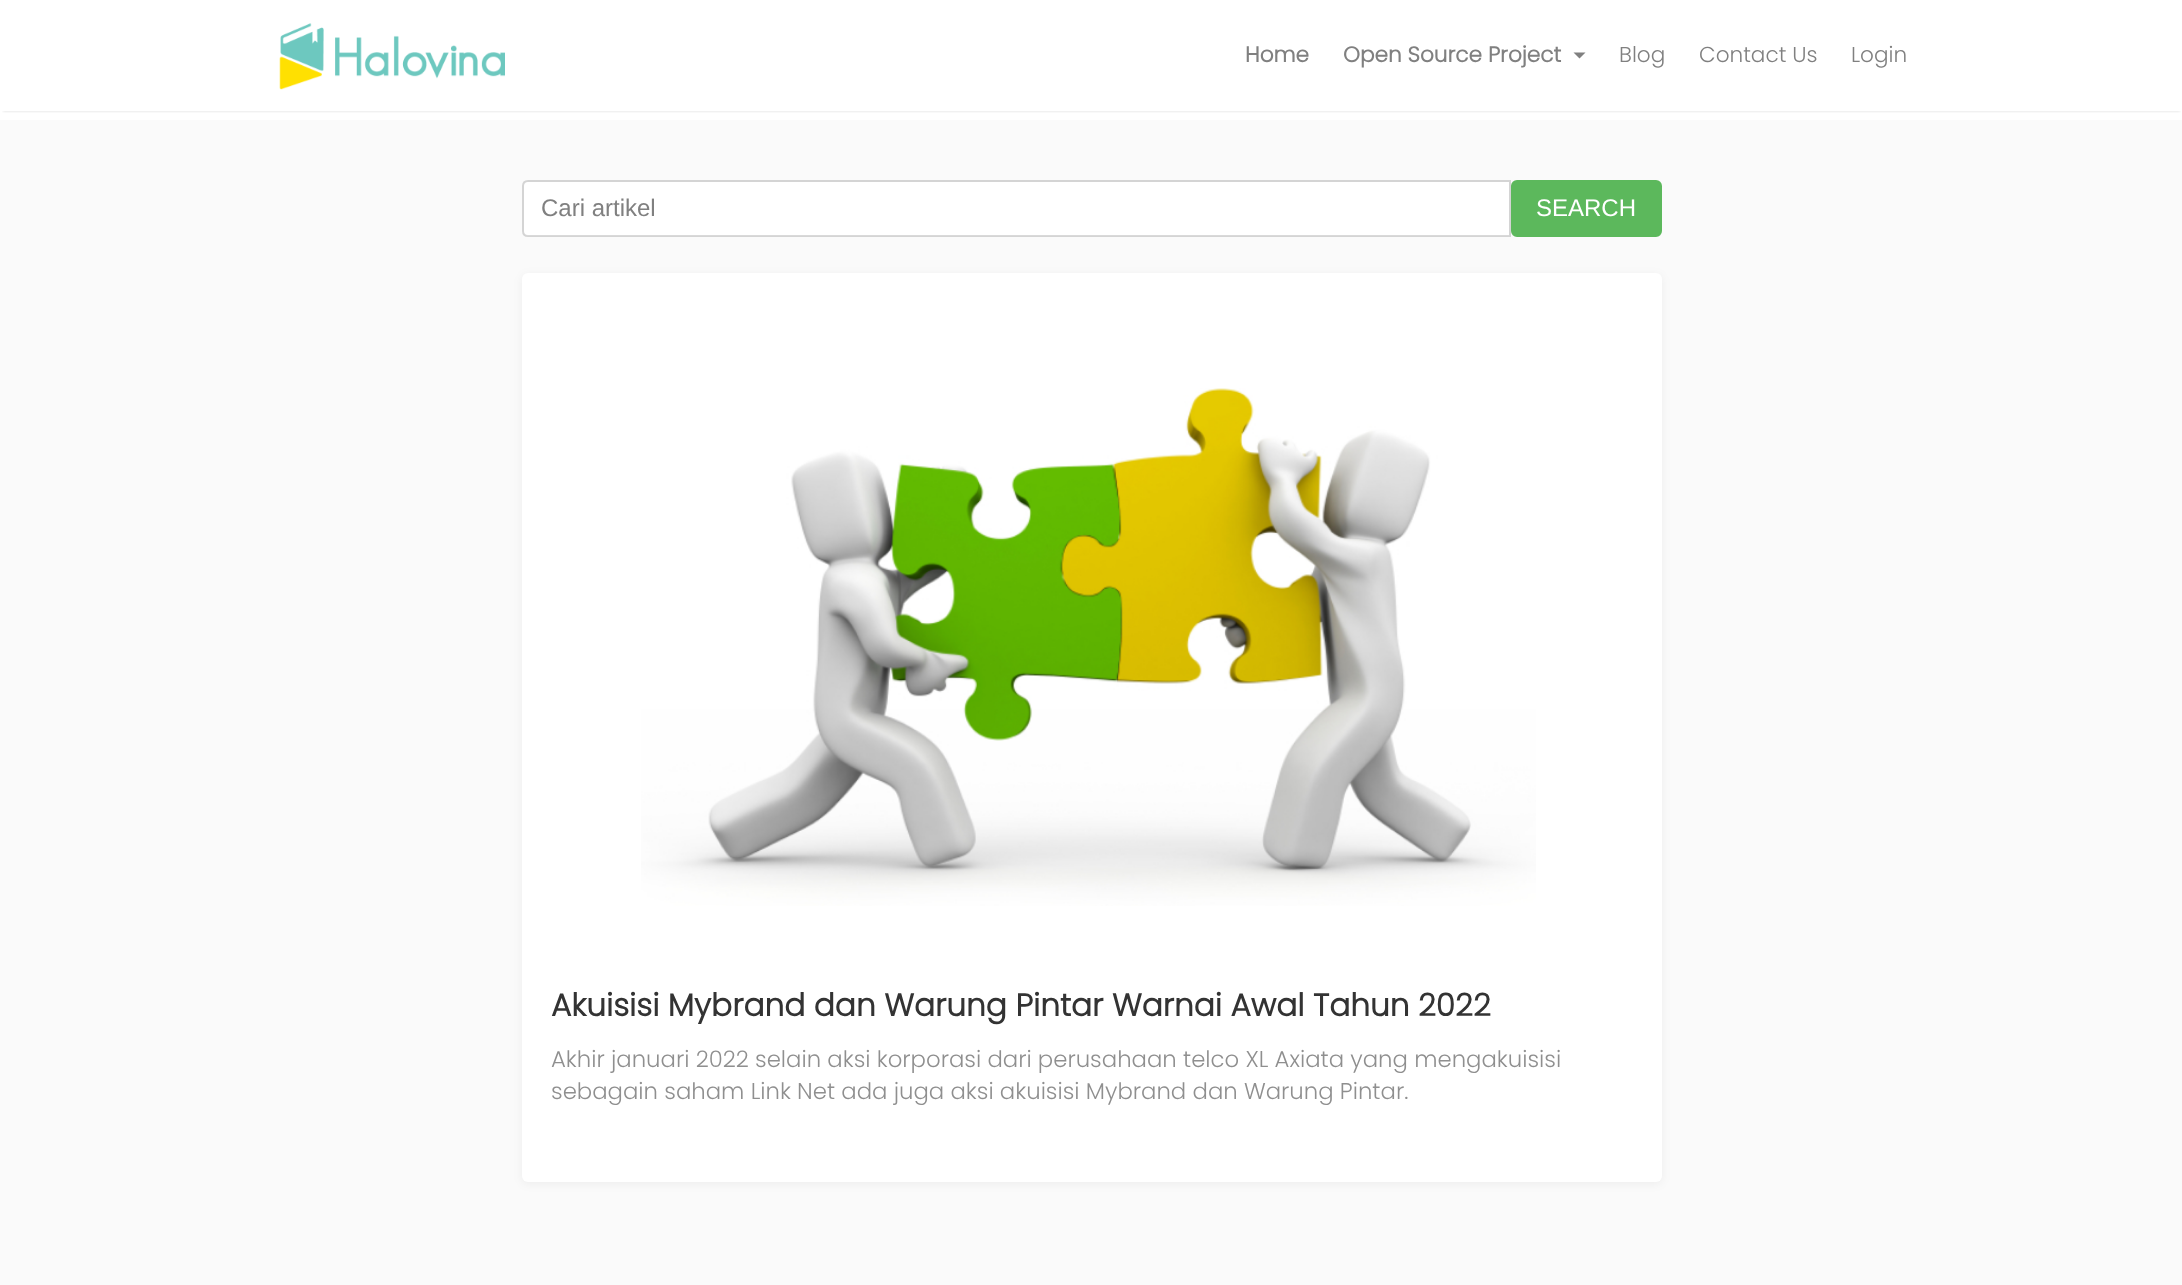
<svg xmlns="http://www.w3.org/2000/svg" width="2182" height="1285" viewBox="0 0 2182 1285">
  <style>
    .t1 { font: bold 21.6px Poppins; fill: #808080; }
    .t2 { font: 300 21.6px Poppins; fill: #808080; }
    .t3 { font: 24px Liberation Sans; fill: #808080; }
    .t4 { font: 24px Liberation Sans; fill: #fff; }
    .t5 { font: bold 31.2px Poppins; fill: #333; }
    .t6 { font: 300 22.8px Poppins; fill: #8f8f8f; }
  </style>
  <defs>
    <clipPath id="clip1"><rect x="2" y="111" width="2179" height="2"/></clipPath>
  </defs>
  <rect width="100%" height="100%" fill="#fff"/>
  <g clip-path="url(#clip1)">
    <rect x="3" y="6" width="2177" height="105" fill="#00000026" filter="blur(1.5px)"/>
  </g>
  <image x="279" y="23" width="226" height="67" href="images/1.png"/>
  <text x="1245" y="62" class="t1">Home</text>
  <text x="1343" y="62" class="t1">Open Source Project</text>
  <path d="M1573.5 52.5H1585.5L1579.5 58.5Z" fill="#808080"/>
  <text x="1619" y="62" class="t2">Blog</text>
  <text x="1699" y="62" class="t2">Contact Us</text>
  <text x="1851" y="62" class="t2">Login</text>
  <rect x="0" y="120" width="2182" height="1165" fill="#fafafa"/>
  <path d="M529 182H1509V236H529C526 236 524 234 524 231V187C524 184 526 182 529 182Z" fill="#fff"/>
  <path d="M528 181H1510V236H528C525 236 523 234 523 231V186C523 183 525 181 528 181Z" fill="none" stroke="#00000026" stroke-width="2"/>
  <text x="541" y="216" class="t3">Cari artikel</text>
  <rect x="1512" y="181" width="149" height="55" rx="5" fill="#5cb85c" stroke="#5cb85c" stroke-width="2"/>
  <text x="1536" y="216" class="t4">SEARCH</text>
  <rect x="522" y="275" width="1140" height="909" rx="6" fill="#0000000d" filter="blur(5px)"/>
  <rect x="522" y="273" width="1140" height="909" rx="6" fill="#fff"/>
  <image x="641" y="388" width="895" height="518" href="images/2.png"/>
  <text x="551" y="1016" class="t5">Akuisisi Mybrand dan Warung Pintar Warnai Awal Tahun 2022</text>
  <text x="551" y="1067" class="t6">Akhir januari 2022 selain aksi korporasi dari perusahaan telco XL Axiata yang mengakuisisi</text>
  <text x="551" y="1099" class="t6">sebagain saham Link Net ada juga aksi akuisisi Mybrand dan Warung Pintar.</text>
</svg>
